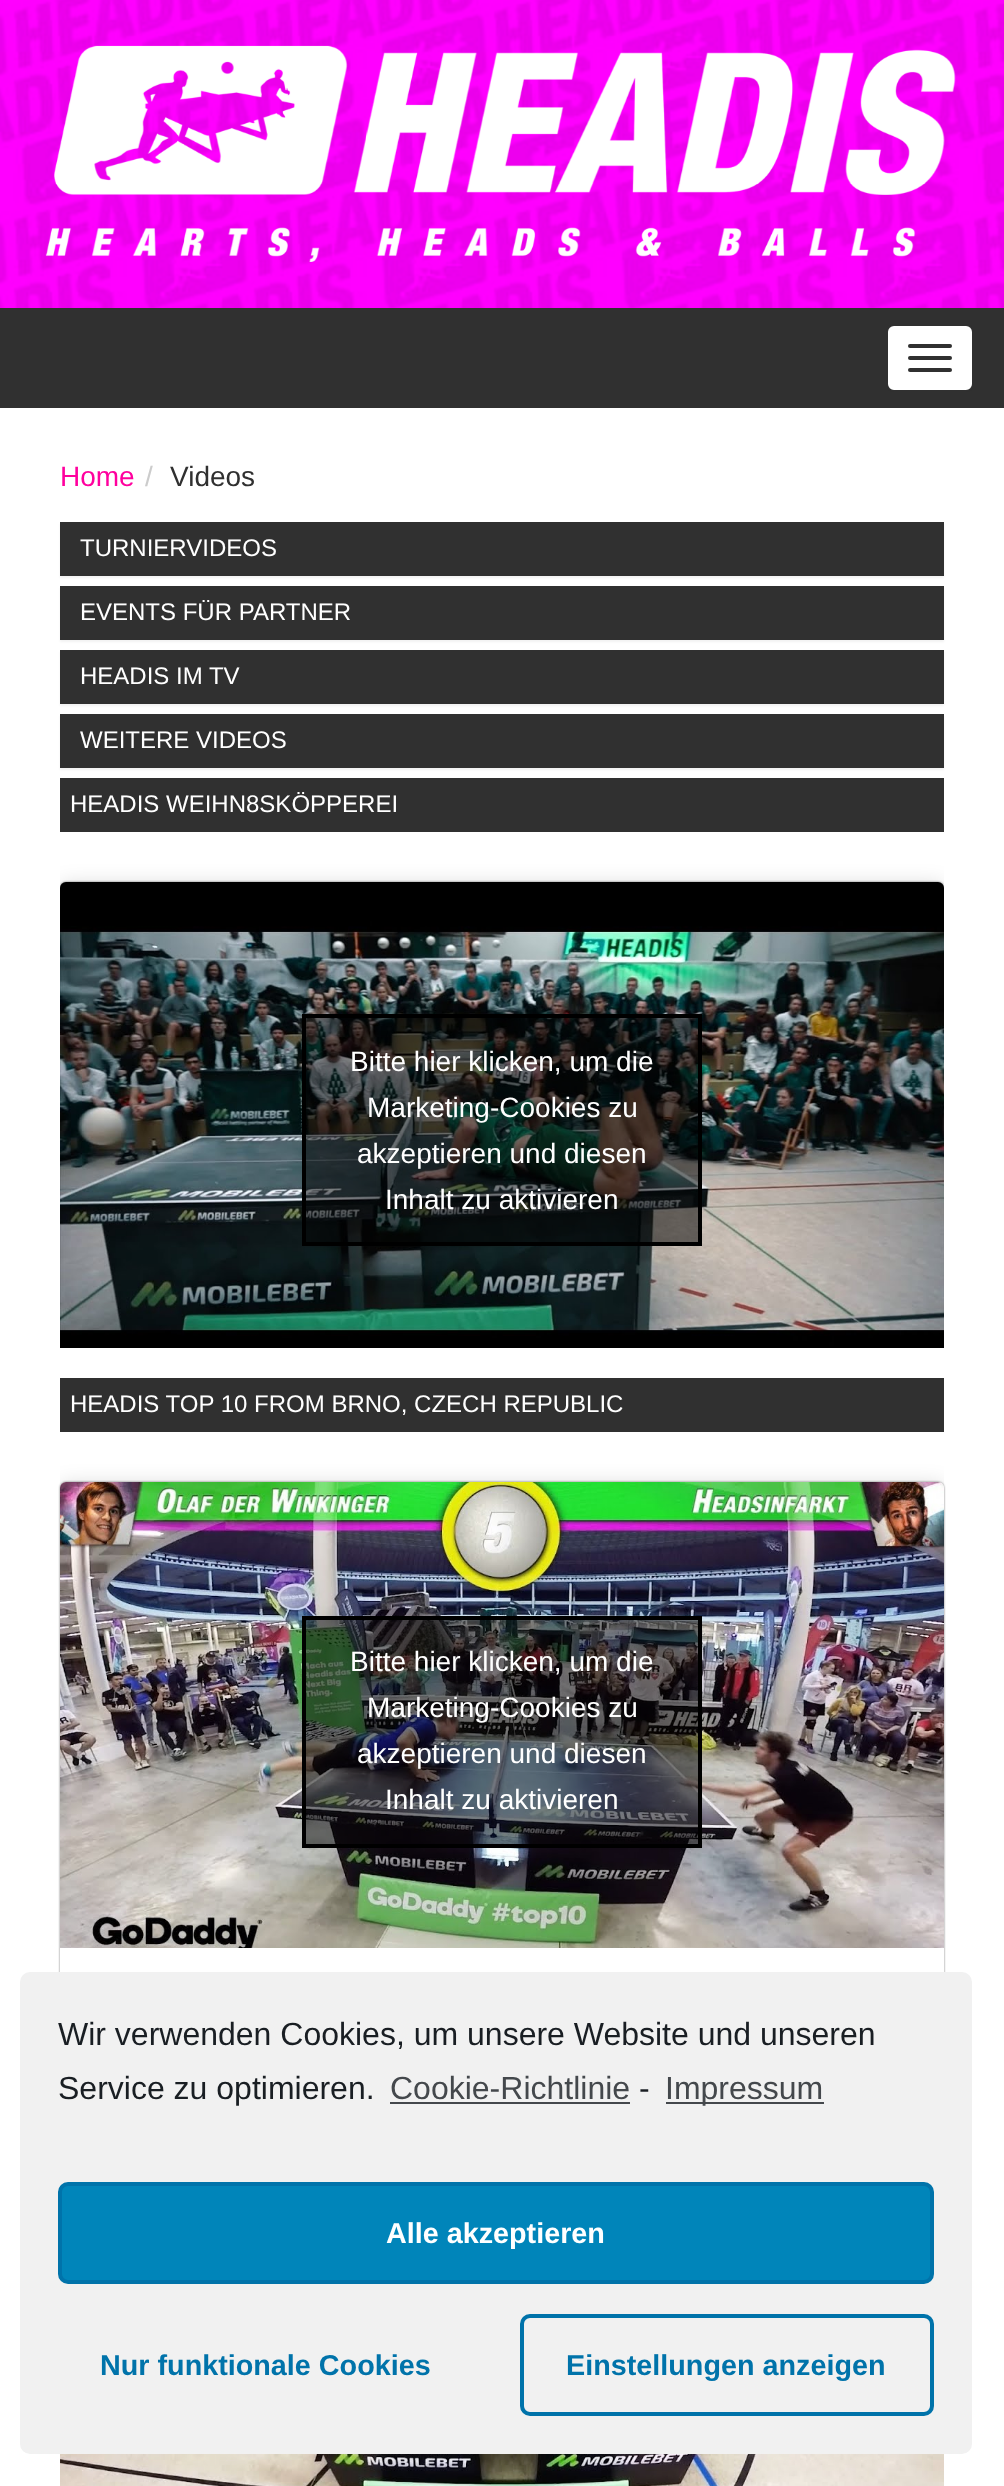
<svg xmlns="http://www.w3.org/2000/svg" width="1004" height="2486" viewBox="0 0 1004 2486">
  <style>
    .t1 { font: 28px Liberation Sans; fill: #ff009e; }
    .t2 { font: 28px Liberation Sans; fill: #ccc; }
    .t3 { font: 28px Liberation Sans; fill: #303030; }
    .t4 { font: 24px Liberation Sans; fill: #fff; }
    .t5 { font: 28px Liberation Sans; fill: #fff; }
    .t6 { font: 32px Liberation Sans; fill: #191e23; }
    .t7 { font: 32px Liberation Sans; fill: #44484c; }
    .t8 { font: bold 28.75px Liberation Sans; fill: #fff; }
    .t9 { font: bold 28.75px Liberation Sans; fill: #0073aa; }
  </style>
  <defs>
    <clipPath id="clip1"><rect x="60" y="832" width="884" height="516"/></clipPath>
    <clipPath id="clip2"><rect x="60" y="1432" width="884" height="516"/></clipPath>
    <clipPath id="clip3"><path d="M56 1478H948V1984H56ZM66 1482H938C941.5 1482 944 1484.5 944 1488V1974C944 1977.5 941.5 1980 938 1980H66C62.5 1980 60 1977.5 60 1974V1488C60 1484.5 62.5 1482 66 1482Z" clip-rule="evenodd"/></clipPath>
  </defs>
  <rect width="100%" height="100%" fill="#fff"/>
  <image x="0" y="0" width="1004" height="308" href="images/1.png"/>
  <image x="45" y="45" width="911" height="217" href="images/2.png"/>
  <rect x="0" y="308" width="1004" height="100" fill="#303030"/>
  <rect x="887" y="325" width="86" height="66" rx="7" fill="#fff" stroke="#303030" stroke-width="2"/>
  <rect x="908" y="344" width="44" height="4" rx="2" fill="#303030"/>
  <rect x="908" y="356" width="44" height="4" rx="2" fill="#303030"/>
  <rect x="908" y="368" width="44" height="4" rx="2" fill="#303030"/>
  <text x="60" y="486" class="t1">Home</text>
  <text x="145" y="486" class="t2">/</text>
  <text x="170" y="486" class="t3">Videos</text>
  <rect x="60" y="524" width="884" height="54" fill="#0000000d" filter="blur(1px)"/>
  <rect x="60" y="522" width="884" height="54" fill="#303030"/>
  <text x="80" y="556" class="t4">TURNIERVIDEOS</text>
  <rect x="60" y="588" width="884" height="54" fill="#0000000d" filter="blur(1px)"/>
  <rect x="60" y="586" width="884" height="54" fill="#303030"/>
  <text x="80" y="620" class="t4">EVENTS FÜR PARTNER</text>
  <rect x="60" y="652" width="884" height="54" fill="#0000000d" filter="blur(1px)"/>
  <rect x="60" y="650" width="884" height="54" fill="#303030"/>
  <text x="80" y="684" class="t4">HEADIS IM TV</text>
  <rect x="60" y="716" width="884" height="54" fill="#0000000d" filter="blur(1px)"/>
  <rect x="60" y="714" width="884" height="54" fill="#303030"/>
  <text x="80" y="748" class="t4">WEITERE VIDEOS</text>
  <rect x="60" y="778" width="884" height="54" fill="#303030"/>
  <text x="70" y="812" class="t4">HEADIS WEIHN8SKÖPPEREI</text>
  <rect x="60" y="1378" width="884" height="54" fill="#303030"/>
  <g clip-path="url(#clip1)">
    <rect x="60" y="884" width="884" height="498" rx="6" fill="#00000026" filter="blur(10px)"/>
    <rect x="60" y="882" width="884" height="498" rx="6" fill="#00000080" filter="blur(1px)"/>
  </g>
  <image x="60" y="882" width="884" height="466" href="images/3.png"/>
  <rect x="304" y="1016" width="396" height="228" fill="#00000080" stroke="#000" stroke-width="4"/>
  <text x="350" y="1071" class="t5">Bitte hier klicken, um die</text>
  <text x="367" y="1117" class="t5">Marketing-Cookies zu</text>
  <text x="357" y="1163" class="t5">akzeptieren und diesen</text>
  <text x="385" y="1209" class="t5">Inhalt zu aktivieren</text>
  <text x="70" y="1412" class="t4">HEADIS TOP 10 FROM BRNO, CZECH REPUBLIC</text>
  <g clip-path="url(#clip2)">
    <rect x="60" y="1484" width="884" height="498" rx="6" fill="#00000026" filter="blur(10px)"/>
  </g>
  <g clip-path="url(#clip3)">
    <rect x="60" y="1482" width="884" height="498" rx="6" fill="#00000080" filter="blur(1px)"/>
  </g>
  <image x="60" y="1482" width="884" height="466" href="images/4.png"/>
  <rect x="304" y="1618" width="396" height="228" fill="#00000080" stroke="#000" stroke-width="4"/>
  <text x="350" y="1671" class="t5">Bitte hier klicken, um die</text>
  <text x="367" y="1717" class="t5">Marketing-Cookies zu</text>
  <text x="357" y="1763" class="t5">akzeptieren und diesen</text>
  <text x="385" y="1809" class="t5">Inhalt zu aktivieren</text>
  <image x="60" y="2454" width="884" height="32" href="images/5.png"/>
  <rect x="20" y="1972" width="952" height="482" rx="10" fill="#f1f1f1"/>
  <text x="58" y="2045" class="t6">Wir verwenden Cookies, um unsere Website und unseren</text>
  <text x="58" y="2099" class="t6">Service zu optimieren.</text>
  <text x="390" y="2099" class="t7">Cookie-Richtlinie</text>
  <rect x="390" y="2102" width="240" height="2" fill="#44484c"/>
  <text x="639" y="2099" class="t6">-</text>
  <rect x="666" y="2102" width="158" height="2" fill="#44484c"/>
  <text x="665" y="2099" class="t7">Impressum</text>
  <rect x="60" y="2184" width="872" height="98" rx="8" fill="#0085ba" stroke="#0073aa" stroke-width="4"/>
  <text x="386" y="2243" class="t8">Alle akzeptieren</text>
  <text x="100" y="2375" class="t9">Nur funktionale Cookies</text>
  <rect x="522" y="2316" width="410" height="98" rx="8" fill="none" stroke="#0073aa" stroke-width="4"/>
  <text x="566" y="2375" class="t9">Einstellungen anzeigen</text>
</svg>
